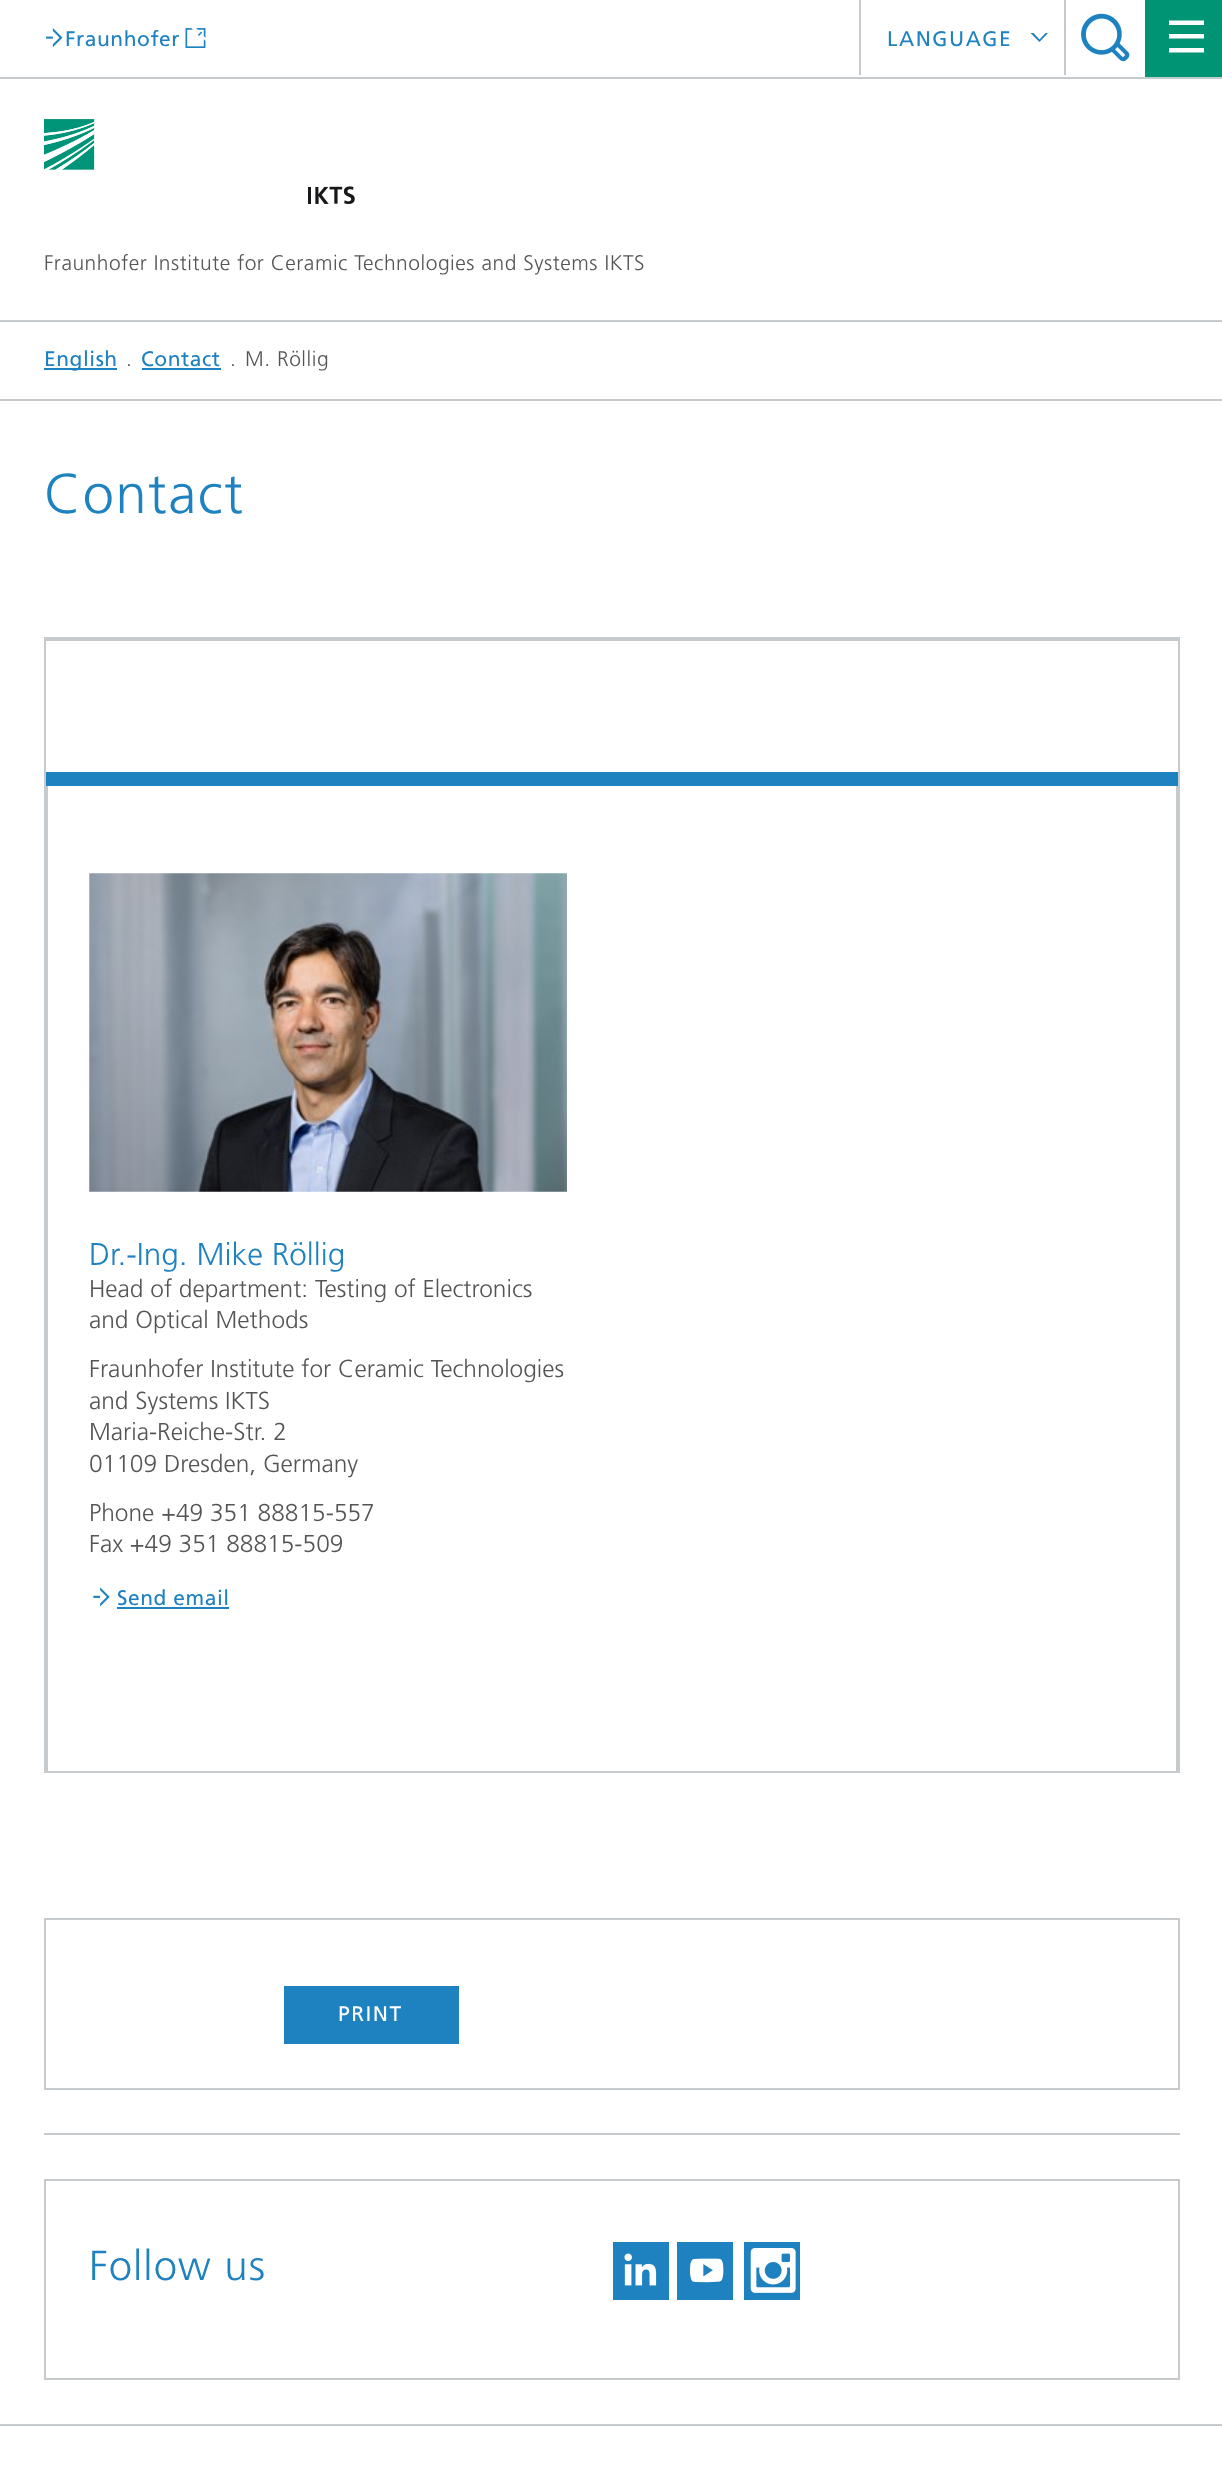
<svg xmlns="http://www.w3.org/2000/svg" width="1222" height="2475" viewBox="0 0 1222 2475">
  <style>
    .t1 { font: 21px Frutiger; letter-spacing: 0.53px; fill: #1f82c0; }
    .t2 { font: 21px Frutiger; letter-spacing: 1.5px; fill: #1f82c0; }
    .t3 { font: 300 21px Frutiger; letter-spacing: 0.53px; fill: #555; }
    .t4 { font: 300 56px Frutiger; letter-spacing: 1.5px; fill: #1f82c0; }
    .t5 { font: 300 31.5px Frutiger; fill: #1f82c0; }
    .t6 { font: 300 24.5px Frutiger; fill: #555; }
    .t7 { font: 21px Frutiger; letter-spacing: 1.5px; fill: #fff; }
    .t8 { font: 300 42px Frutiger; letter-spacing: 1px; fill: #1f82c0; }
  </style>
  <rect width="100%" height="100%" fill="#fff"/>
  <rect x="0" y="320" width="1222" height="2" fill="#c7cacc"/>
  <image x="1081" y="13" width="49" height="49" href="images/1.png"/>
  <image x="44" y="119" width="311" height="85" href="images/2.png"/>
  <rect x="0" y="77" width="1222" height="2" fill="#c7cacc"/>
  <image x="46" y="28" width="17" height="20" href="images/3.png"/>
  <text x="65" y="46" class="t1">Fraunhofer</text>
  <image x="185" y="28" width="21" height="20" href="images/4.png"/>
  <rect x="1064" y="0" width="2" height="75" fill="#c7cacc"/>
  <rect x="859" y="0" width="2" height="75" fill="#c7cacc"/>
  <text x="887" y="46" class="t2">LANGUAGE</text>
  <path d="M1045.5 33L1039.5 39.5L1033.5 33H1030.5L1039.5 42L1048 33Z" fill="#1f82c0"/>
  <rect x="1145" y="0" width="77" height="77" fill="#009374"/>
  <path d="M1169 34V38.5H1204V34ZM1169 48V52.5H1204V48ZM1169 20.5V25H1204V20.5Z" fill="#fff"/>
  <text x="44" y="270" class="t3">Fraunhofer Institute for Ceramic Technologies and Systems IKTS</text>
  <rect x="44" y="368" width="73" height="2" fill="#1f82c0"/>
  <text x="44" y="366" class="t1">English</text>
  <text x="126" y="366" class="t3">.</text>
  <text x="141" y="366" class="t1">Contact</text>
  <rect x="142" y="368" width="79" height="2" fill="#1f82c0"/>
  <text x="230" y="366" class="t3">.</text>
  <text x="245" y="366" class="t3">M. Röllig</text>
  <rect x="0" y="399" width="1222" height="2" fill="#c7cacc"/>
  <text x="44" y="513" class="t4">Contact</text>
  <rect x="44" y="637" width="1136" height="2" fill="#c7cacc"/>
  <rect x="1178" y="637" width="2" height="1134" fill="#c7cacc"/>
  <rect x="44" y="637" width="2" height="1134" fill="#c7cacc"/>
  <rect x="46" y="639" width="1132" height="2" fill="#c7cacc"/>
  <rect x="46" y="772" width="1132" height="14" fill="#1f82c0"/>
  <rect x="1176" y="786" width="2" height="985" fill="#c7cacc"/>
  <rect x="46" y="786" width="2" height="985" fill="#c7cacc"/>
  <image x="89" y="873" width="478" height="319" href="images/5.png"/>
  <text x="89" y="1265" class="t5">Dr.-Ing. Mike Röllig</text>
  <text x="89" y="1297" class="t6">Head of department: Testing of Electronics</text>
  <text x="89" y="1328" class="t6">and Optical Methods</text>
  <text x="89" y="1377" class="t6">Fraunhofer Institute for Ceramic Technologies</text>
  <text x="89" y="1409" class="t6">and Systems IKTS</text>
  <text x="89" y="1440" class="t6">Maria-Reiche-Str. 2</text>
  <text x="89" y="1472" class="t6">01109 Dresden, Germany</text>
  <text x="89" y="1521" class="t6">Phone +49 351 88815-557</text>
  <text x="89" y="1552" class="t6">Fax +49 351 88815-509</text>
  <image x="93" y="1587" width="17" height="20" href="images/6.png"/>
  <text x="117" y="1605" class="t1">Send email</text>
  <rect x="117" y="1607" width="112" height="2" fill="#1f82c0"/>
  <rect x="44" y="1771" width="1136" height="2" fill="#c7cacc"/>
  <rect x="45" y="1919" width="1134" height="170" fill="none" stroke="#c7cacc" stroke-width="2"/>
  <rect x="284" y="1986" width="175" height="58" fill="#1f82c0"/>
  <text x="338" y="2021" class="t7">PRINT</text>
  <rect x="44" y="2133" width="1136" height="2" fill="#c7cacc"/>
  <rect x="45" y="2180" width="1134" height="199" fill="none" stroke="#c7cacc" stroke-width="2"/>
  <text x="89" y="2280" class="t8">Follow us</text>
  <rect x="613" y="2242" width="56" height="58" fill="#1f82c0"/>
  <image x="624" y="2253" width="33" height="33" href="images/7.png"/>
  <rect x="677" y="2242" width="56" height="58" fill="#1f82c0"/>
  <image x="689" y="2258" width="35" height="25" href="images/8.png"/>
  <rect x="744" y="2242" width="56" height="58" fill="#1f82c0"/>
  <image x="750" y="2248" width="46" height="45" href="images/9.png"/>
  <rect x="0" y="2424" width="1222" height="2" fill="#c7cacc"/>
</svg>
